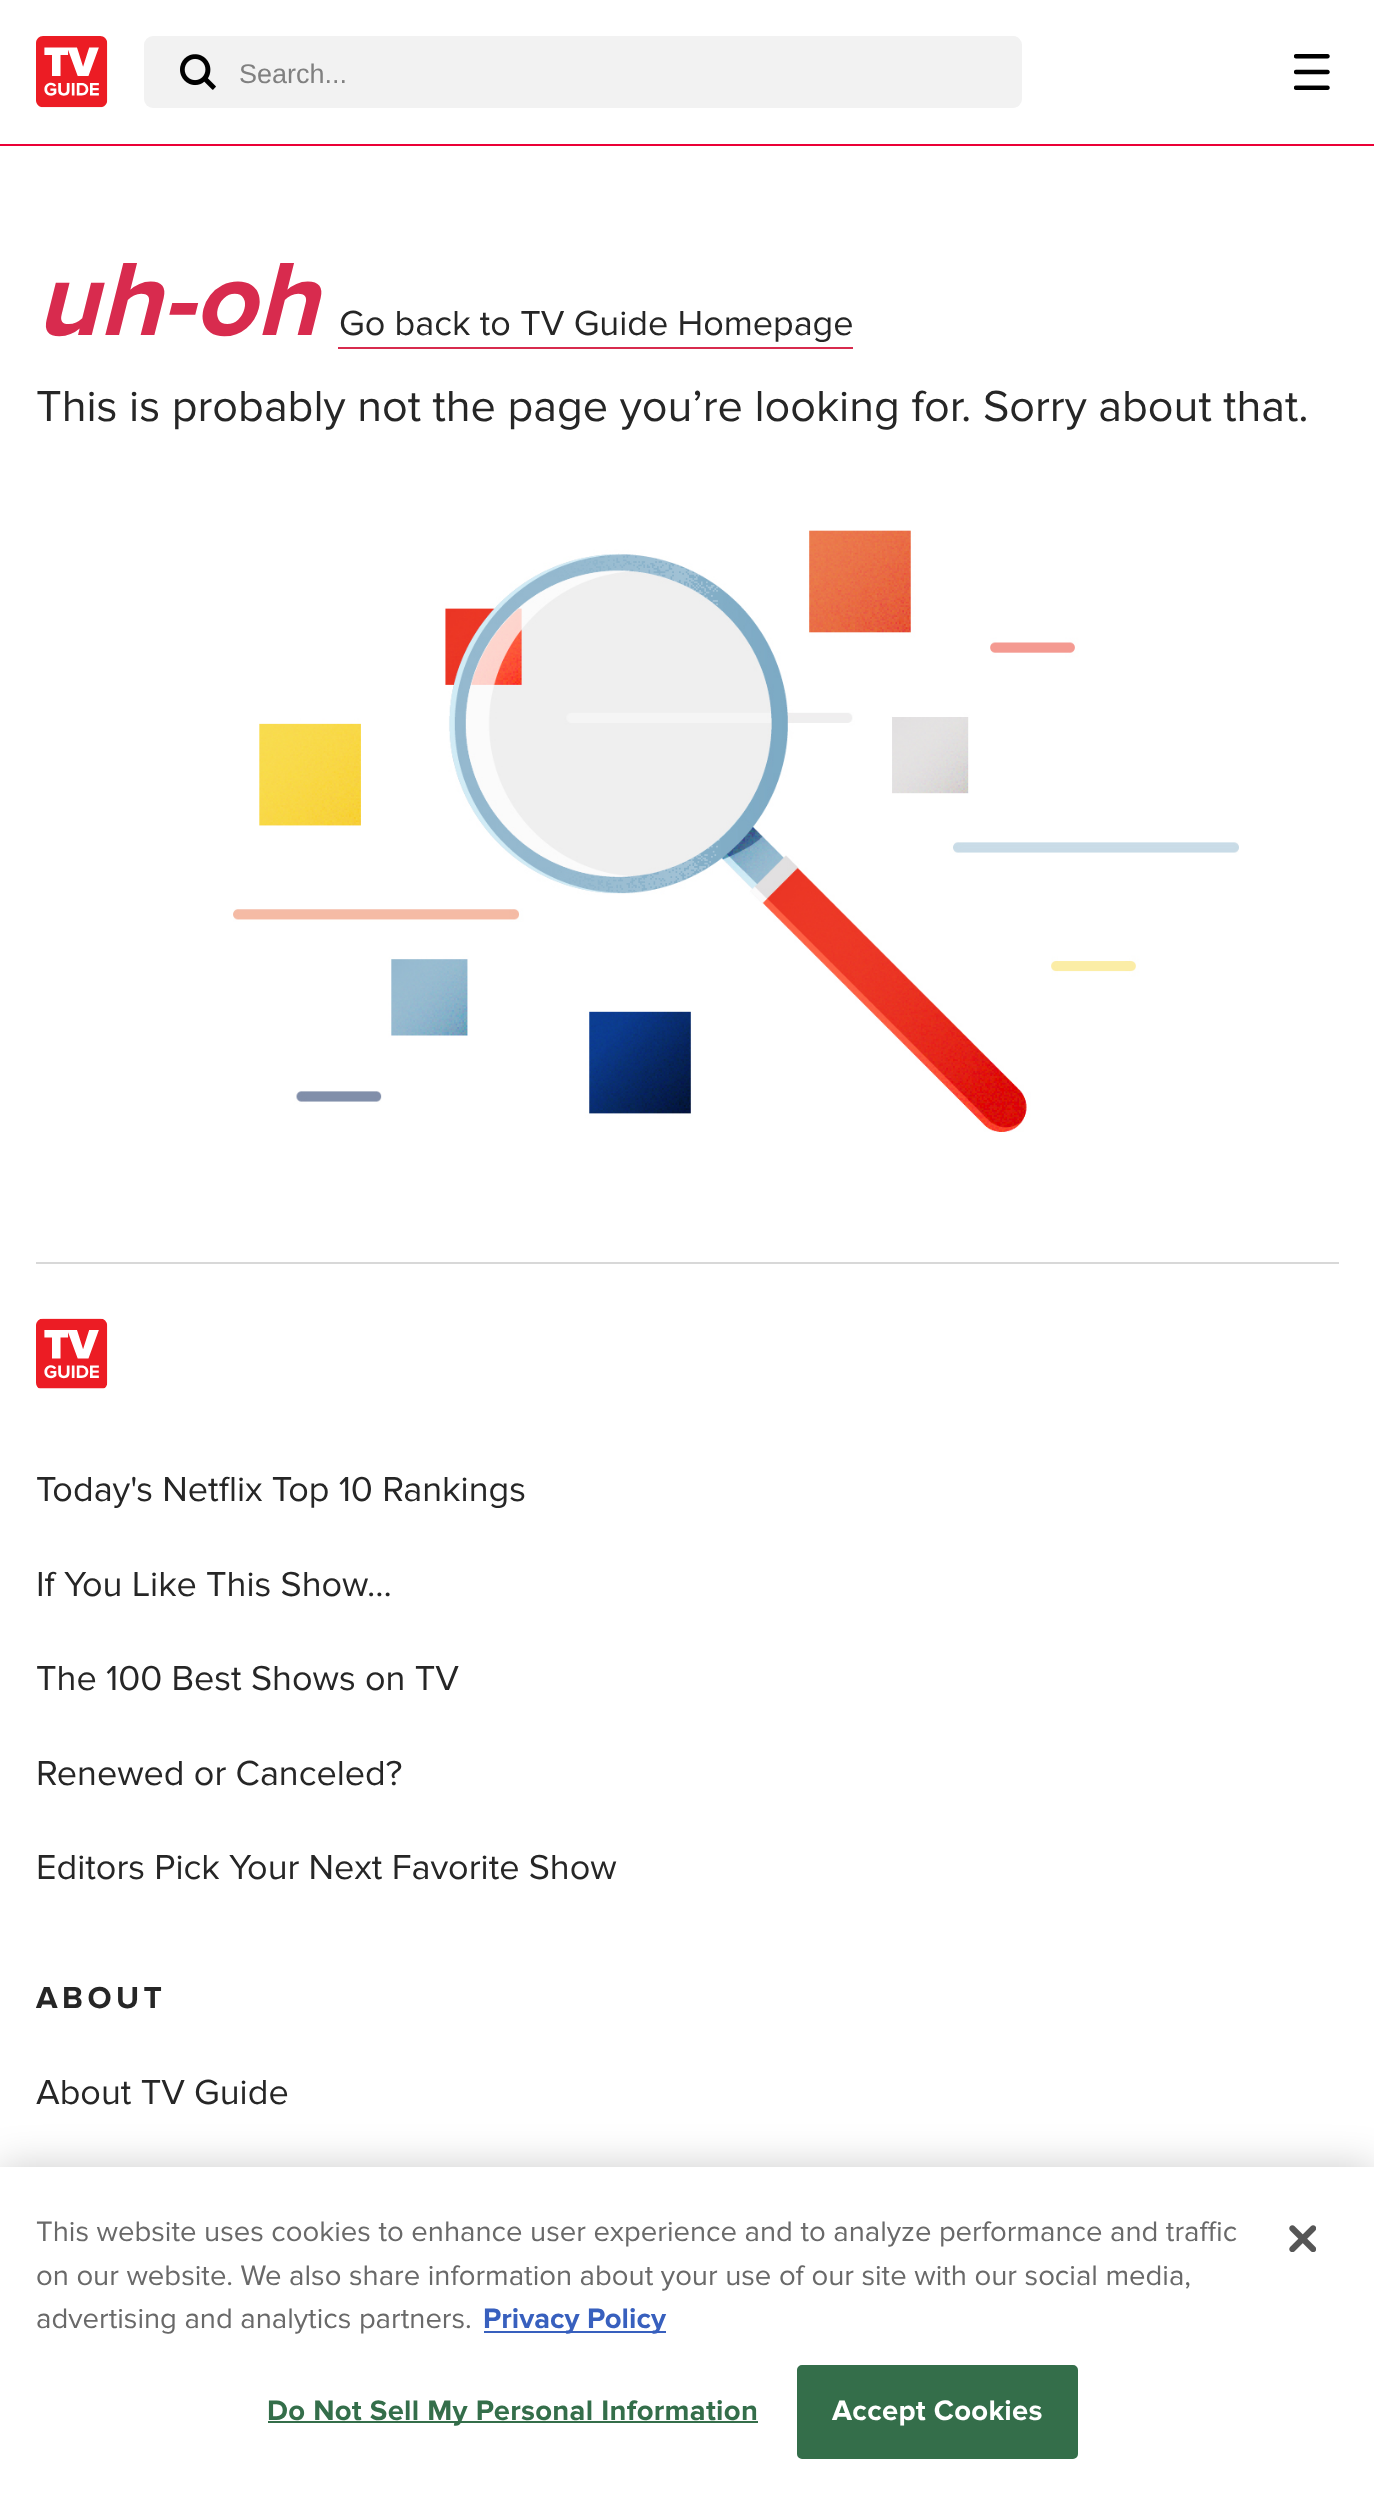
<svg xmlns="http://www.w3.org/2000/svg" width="1374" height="2494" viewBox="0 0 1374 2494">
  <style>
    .t1 { font: 27px Liberation Sans; fill: #808080; }
    .t2 { font: italic bold 108px Proxima Nova; fill: #d82b4e; }
    .t3 { font: 36px Proxima Nova; fill: #262626; }
    .t4 { font: 45px Proxima Nova; fill: #262626; }
    .t5 { font: bold 31.5px Proxima Nova; letter-spacing: 4.5px; fill: #262626; }
    .t6 { font: 29.25px Proxima Nova; fill: #696969; }
    .t7 { font: bold 29.25px Proxima Nova; fill: #3860be; }
    .t8 { font: bold 29.25px Proxima Nova; letter-spacing: 0.3px; fill: #346e4a; }
    .t9 { font: bold 29.25px Proxima Nova; letter-spacing: 0.3px; fill: #fff; }
  </style>
  <rect width="100%" height="100%" fill="#fff"/>
  <rect x="0" y="144" width="1374" height="2" fill="#eb0036"/>
  <image x="36" y="36" width="72" height="72" href="images/1.png"/>
  <rect x="144" y="36" width="878" height="72" rx="9" fill="#f2f2f2"/>
  <image x="180" y="54" width="36" height="36" href="images/2.png"/>
  <text x="239" y="83" class="t1">Search...</text>
  <image x="1294" y="54" width="36" height="36" href="images/3.png"/>
  <text x="36" y="335" class="t2">uh-oh</text>
  <text x="339" y="335" class="t3">Go back to TV Guide Homepage</text>
  <rect x="338" y="347" width="515" height="2" fill="#d82b4e"/>
  <text x="36" y="421" class="t4">This is probably not the page you’re looking for. Sorry about that.</text>
  <image x="233" y="530" width="1006" height="602" href="images/4.png"/>
  <rect x="36" y="1262" width="1303" height="2" fill="#d8d8d8"/>
  <image x="36" y="1318" width="72" height="71" href="images/5.png"/>
  <text x="36" y="1501" class="t3">Today's Netflix Top 10 Rankings</text>
  <text x="36" y="1596" class="t3">If You Like This Show...</text>
  <text x="36" y="1690" class="t3">The 100 Best Shows on TV</text>
  <text x="36" y="1785" class="t3">Renewed or Canceled?</text>
  <text x="36" y="1879" class="t3">Editors Pick Your Next Favorite Show</text>
  <text x="36" y="2008" class="t5">ABOUT</text>
  <text x="36" y="2104" class="t3">About TV Guide</text>
  <rect x="0" y="2167" width="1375" height="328" fill="#00000033" filter="blur(20px)"/>
  <rect x="0" y="2167" width="1374" height="327" fill="#fff"/>
  <text x="36" y="2241" class="t6">This website uses cookies to enhance user experience and to analyze performance and traffic</text>
  <text x="36" y="2285" class="t6">on our website. We also share information about your use of our site with our social media,</text>
  <text x="36" y="2328" class="t6">advertising and analytics partners.</text>
  <rect x="484" y="2331" width="182" height="2" fill="#3860be"/>
  <text x="483" y="2328" class="t7">Privacy Policy</text>
  <rect x="268" y="2421" width="490" height="2" fill="#346e4a"/>
  <text x="267" y="2420" class="t8">Do Not Sell My Personal Information</text>
  <rect x="798" y="2366" width="279" height="92" rx="4" fill="#346e4a" stroke="#346e4a" stroke-width="2"/>
  <text x="832" y="2420" class="t9">Accept Cookies</text>
  <image x="1289" y="2225" width="27" height="27" href="images/6.png"/>
</svg>
